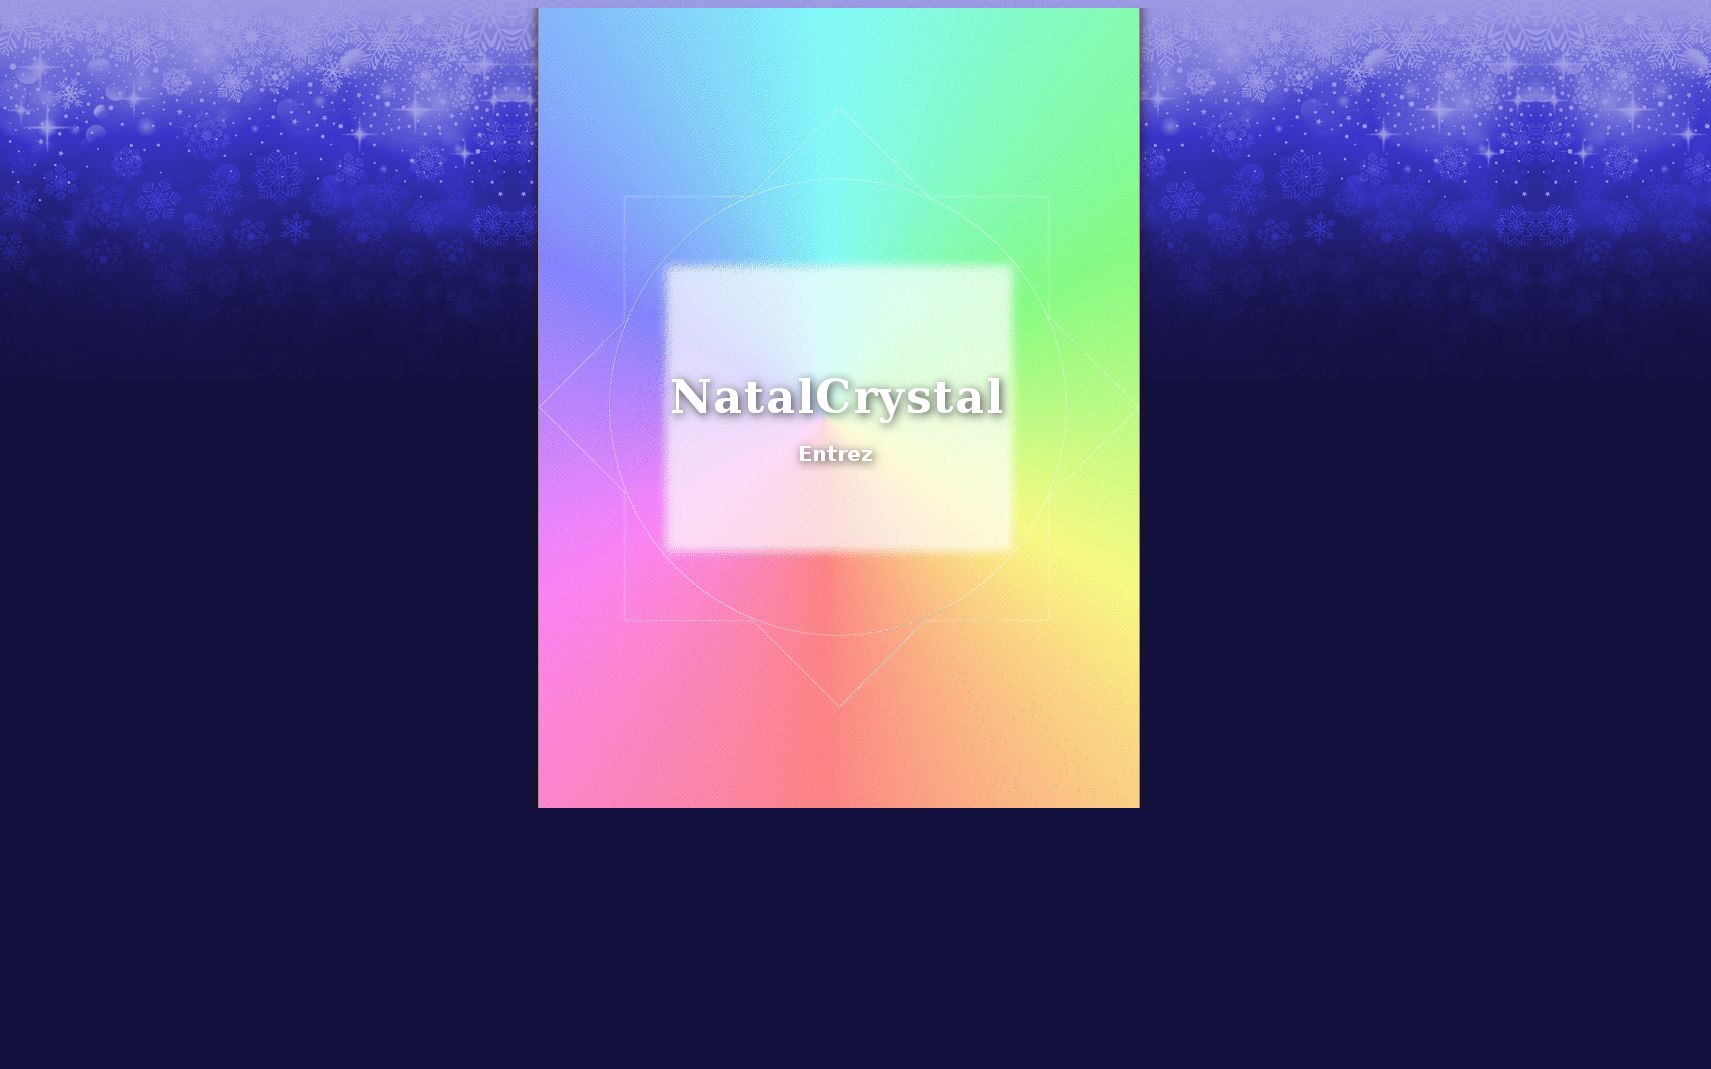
<svg xmlns="http://www.w3.org/2000/svg" width="1711" height="1069" viewBox="0 0 1711 1069">
  <rect width="100%" height="100%" fill="#12103f"/>
  <image x="0" y="0" width="1711" height="379" href="images/1.png"/>
  <image x="526" y="8" width="626" height="800" href="images/2.png"/>
  <image x="539" y="8" width="600" height="800" href="images/3.png"/>
  <image x="668" y="372" width="343" height="99" href="images/4.png"/>
</svg>
